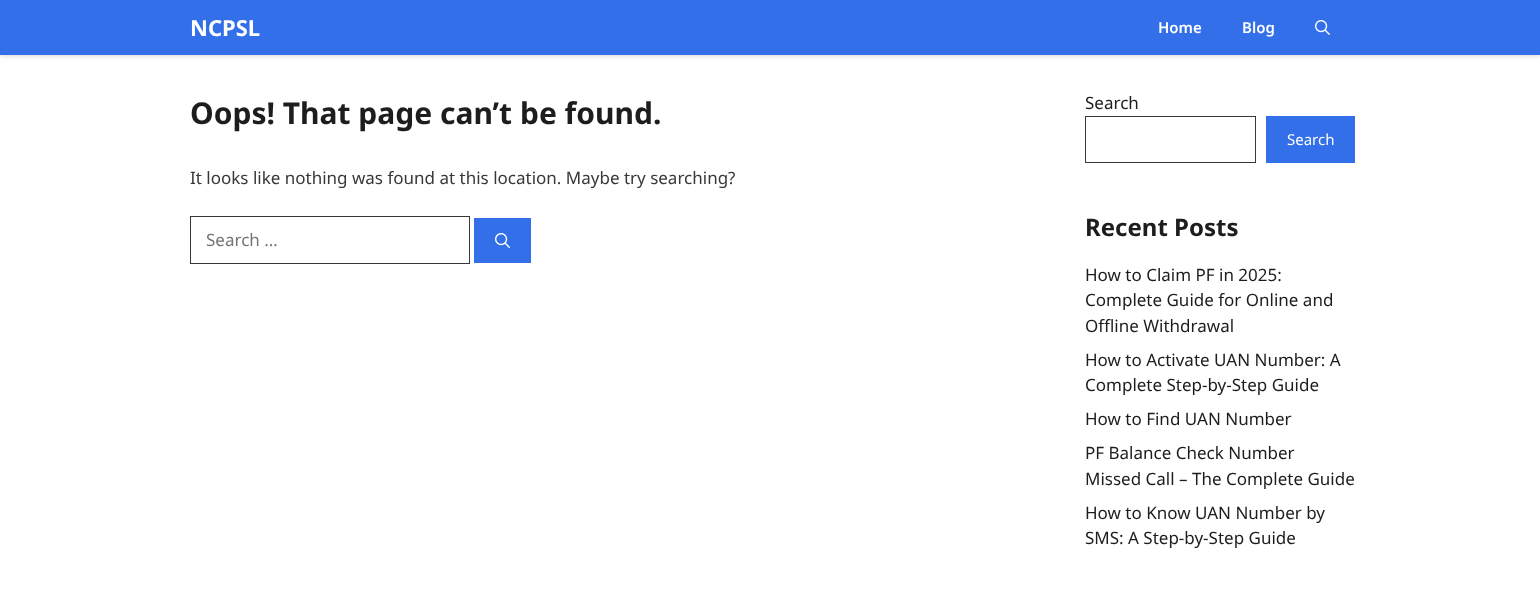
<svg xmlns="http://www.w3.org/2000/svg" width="1540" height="616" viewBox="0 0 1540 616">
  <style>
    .t1 { font: bold 22px Noto Sans; fill: #fff; }
    .t2 { font: 600 15px Noto Sans; fill: #fff; }
    .t3 { font: bold 30px Noto Sans; fill: #1d1d1d; }
    .t4 { font: 17px Noto Sans; fill: #383838; }
    .t5 { font: 17px Noto Sans; fill: #757575; }
    .t6 { font: 17px Noto Sans; fill: #1d1d1d; }
    .t7 { font: 15px Noto Sans; fill: #fff; }
    .t8 { font: bold 24px Noto Sans; fill: #1d1d1d; }
  </style>
  <rect width="100%" height="100%" fill="#fff"/>
  <rect x="0" y="1" width="1540" height="55" fill="#00000029" filter="blur(2px)"/>
  <rect x="0" y="0" width="1540" height="55" fill="#326fe9"/>
  <text x="190" y="36" class="t1">NCPSL</text>
  <text x="1158" y="33" class="t2">Home</text>
  <text x="1242" y="33" class="t2">Blog</text>
  <image x="1315" y="20" width="15" height="15" href="images/1.png"/>
  <text x="190" y="124" class="t3">Oops! That page can’t be found.</text>
  <text x="190" y="184" class="t4">It looks like nothing was found at this location. Maybe try searching?</text>
  <rect x="190.5" y="216.5" width="279" height="47" fill="none" stroke="#383838"/>
  <text x="206" y="246" class="t5">Search …</text>
  <rect x="474" y="218" width="57" height="45" fill="#326fe9"/>
  <image x="495" y="233" width="15" height="15" href="images/1.png"/>
  <text x="1085" y="109" class="t6">Search</text>
  <rect x="1085.5" y="116.5" width="170" height="46" fill="none" stroke="#383838"/>
  <rect x="1266" y="116" width="89" height="47" fill="#326fe9"/>
  <text x="1287" y="145" class="t7">Search</text>
  <text x="1085" y="236" class="t8">Recent Posts</text>
  <text x="1085" y="281" class="t6">How to Claim PF in 2025:</text>
  <text x="1085" y="306" class="t6">Complete Guide for Online and</text>
  <text x="1085" y="332" class="t6">Offline Withdrawal</text>
  <text x="1085" y="366" class="t6">How to Activate UAN Number: A</text>
  <text x="1085" y="391" class="t6">Complete Step-by-Step Guide</text>
  <text x="1085" y="425" class="t6">How to Find UAN Number</text>
  <text x="1085" y="459" class="t6">PF Balance Check Number</text>
  <text x="1085" y="485" class="t6">Missed Call – The Complete Guide</text>
  <text x="1085" y="519" class="t6">How to Know UAN Number by</text>
  <text x="1085" y="544" class="t6">SMS: A Step-by-Step Guide</text>
</svg>
